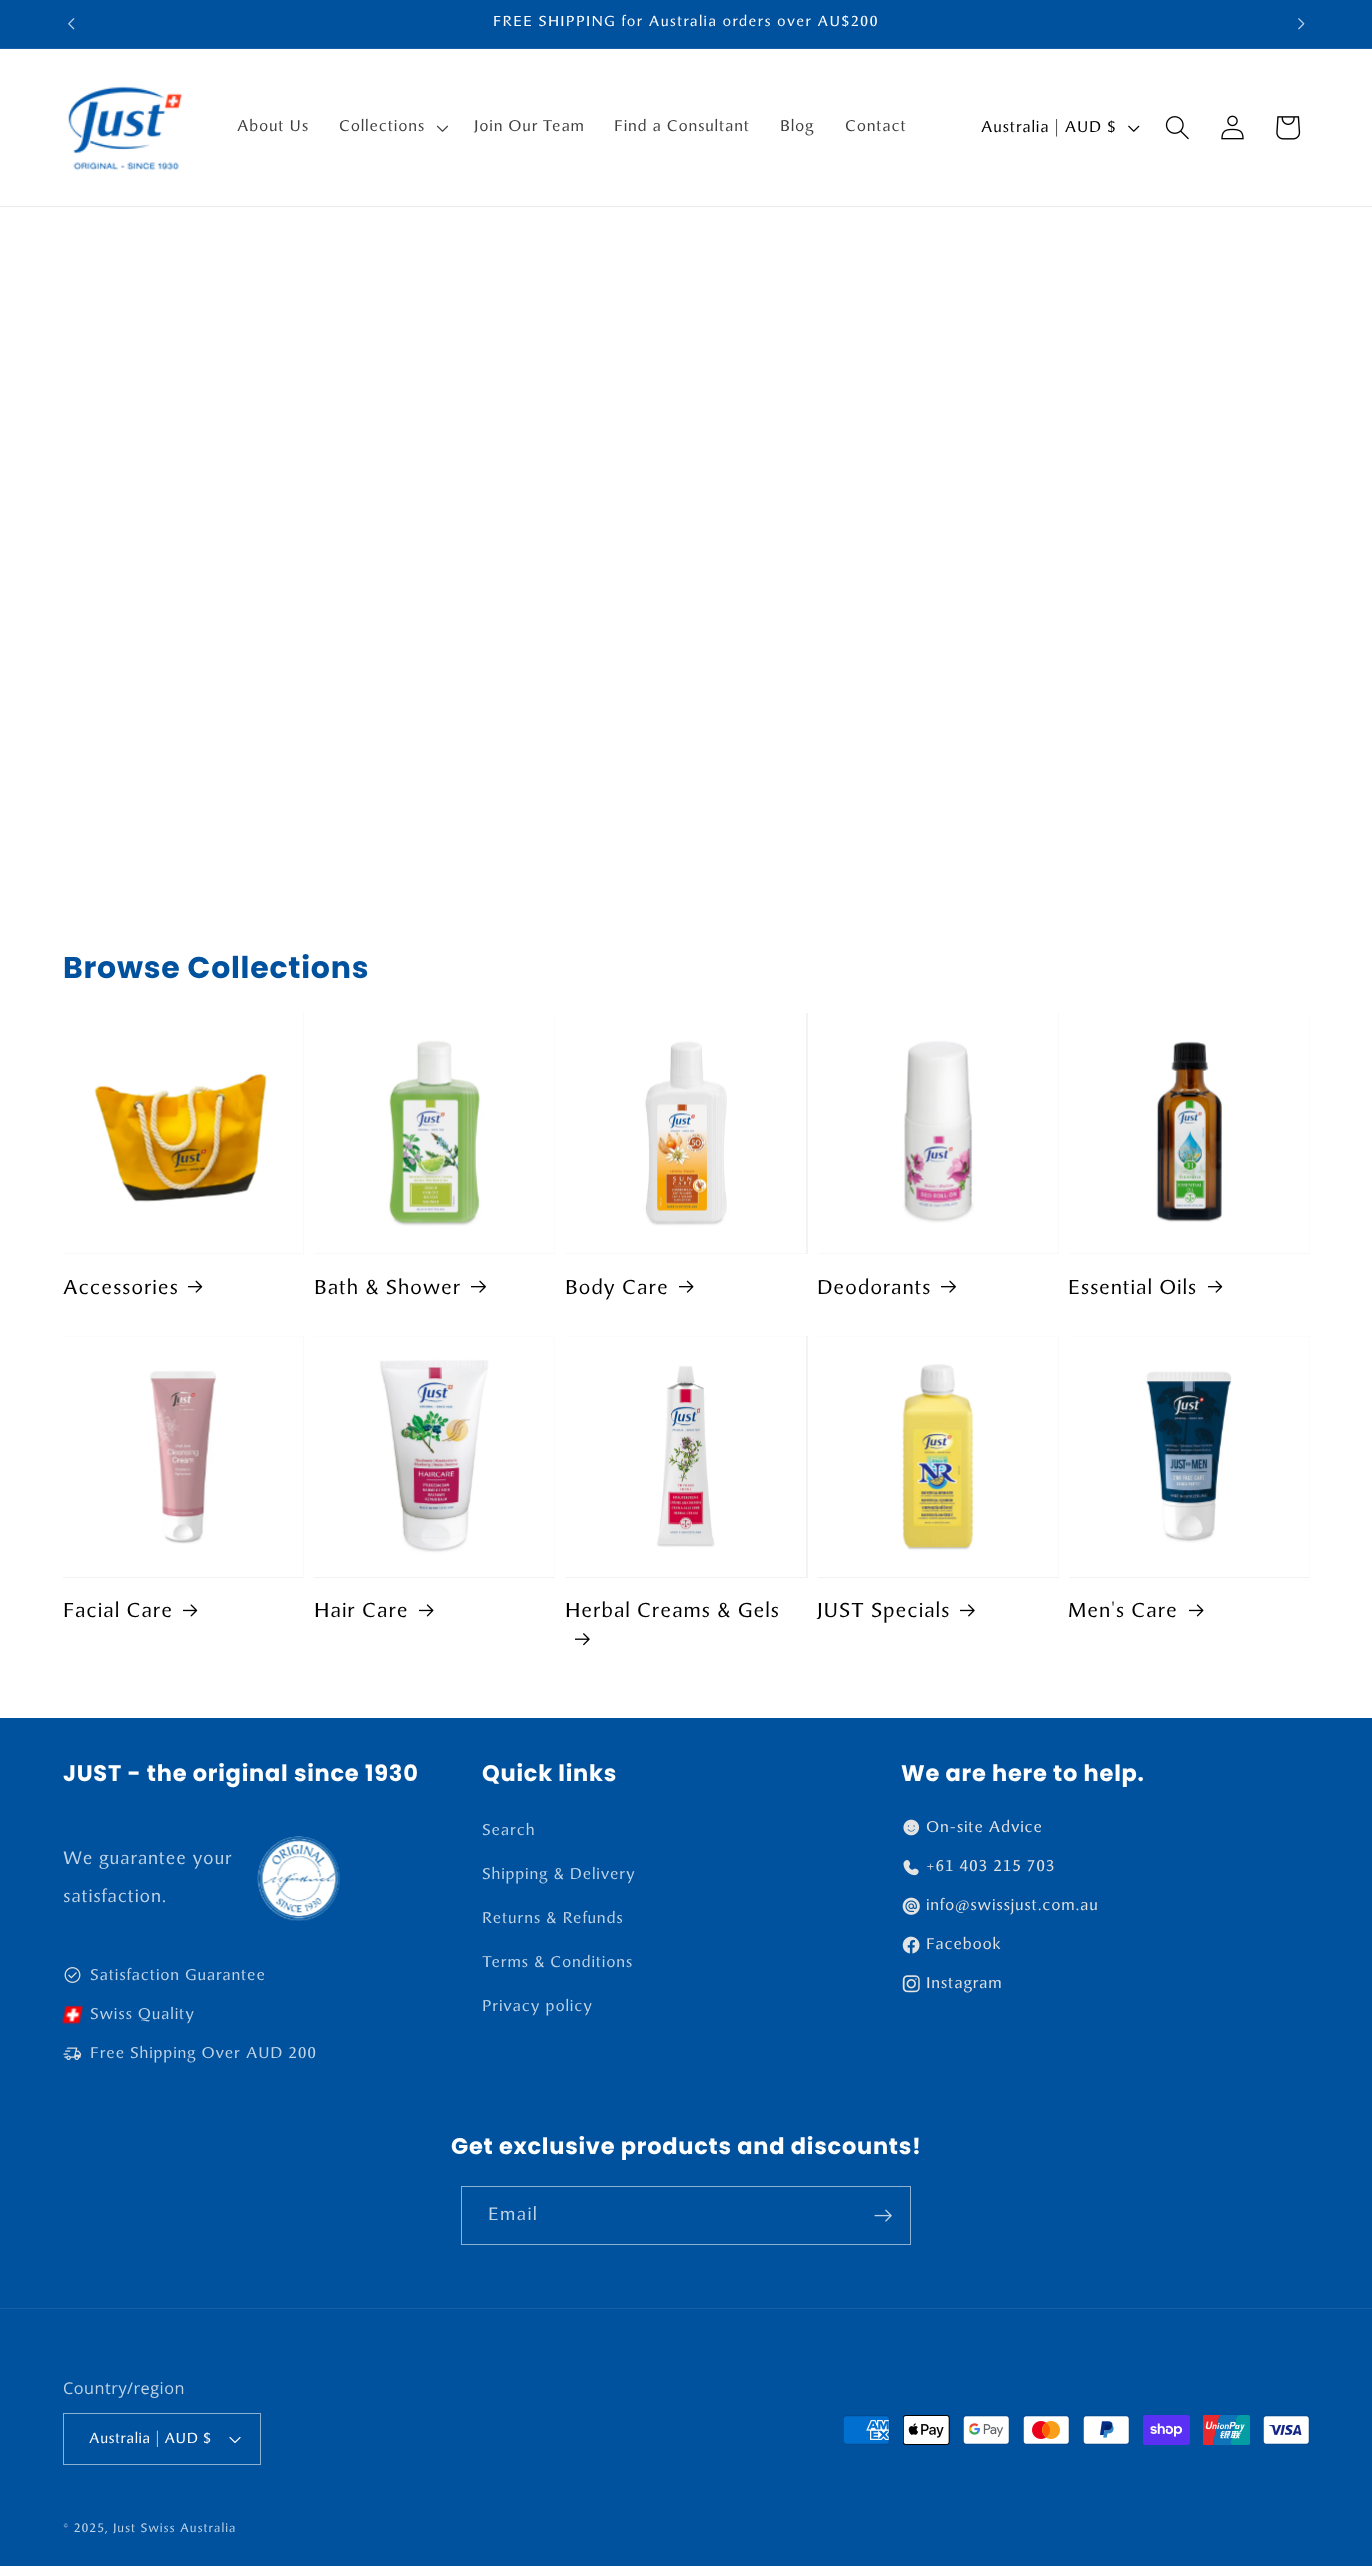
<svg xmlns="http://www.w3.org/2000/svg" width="1372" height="2566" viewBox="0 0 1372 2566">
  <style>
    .t1 { font: 16.25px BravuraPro; letter-spacing: 1.25px; fill: #fff; }
    .t2 { font: 17.5px BravuraPro; letter-spacing: 0.75px; fill: #404040; }
    .t3 { font: 17.5px BravuraPro; letter-spacing: 0.75px; fill: #000; }
    .t4 { font: bold 30px Poppins; letter-spacing: 0.75px; fill: #00519e; }
    .t5 { font: 22.5px BravuraPro; letter-spacing: 0.75px; fill: #000; }
    .t6 { font: bold 22.5px Poppins; letter-spacing: 0.75px; fill: #fff; }
    .t7 { font: 20px BravuraPro; letter-spacing: 0.75px; fill: #bfd4e7; }
    .t8 { font: 17.5px BravuraPro; letter-spacing: 0.75px; fill: #bfd4e7; }
    .t9 { font: 17.5px BravuraPro; letter-spacing: 0.75px; fill: #e3e3e3; }
    .t10 { font: 20px BravuraPro; letter-spacing: 1.25px; fill: #bfd4e7; }
    .t11 { font: 16.25px Open Sans; letter-spacing: 0.5px; fill: #bfd4e7; }
    .t12 { font: 16.25px BravuraPro; letter-spacing: 0.5px; fill: #fff; }
    .t13 { font: 13.75px BravuraPro; letter-spacing: 0.9px; fill: #bfd4e7; }
  </style>
  <rect width="100%" height="100%" fill="#fff"/>
  <rect x="0" y="0" width="1372" height="48" fill="#00519e"/>
  <rect x="0" y="48" width="1372" height="1" fill="#145fa6"/>
  <image x="68" y="18" width="7" height="12" href="images/1.png"/>
  <text x="493" y="26" class="t1">FREE SHIPPING for Australia orders over AU$200</text>
  <image x="1298" y="18" width="7" height="12" href="images/2.png"/>
  <rect x="0" y="206" width="1372" height="1" fill="#ebebeb"/>
  <image x="68" y="86" width="114" height="85" href="images/3.png"/>
  <text x="237" y="131" class="t2">About Us</text>
  <text x="339" y="131" class="t2">Collections</text>
  <image x="436" y="125" width="13" height="7" href="images/4.png"/>
  <text x="474" y="131" class="t2">Join Our Team</text>
  <text x="614" y="131" class="t2">Find a Consultant</text>
  <text x="780" y="131" class="t2">Blog</text>
  <text x="845" y="131" class="t2">Contact</text>
  <text x="981" y="132" class="t3">Australia | AUD $</text>
  <image x="1128" y="125" width="12" height="7" href="images/5.png"/>
  <image x="1165" y="116" width="24" height="24" href="images/6.png"/>
  <image x="1221" y="115" width="23" height="25" href="images/7.png"/>
  <image x="1276" y="116" width="25" height="24" href="images/8.png"/>
  <text x="63" y="978" class="t4">Browse Collections</text>
  <rect x="63" y="1013" width="241" height="241" fill="#f3f3f3"/>
  <image x="63" y="1013" width="241" height="241" href="images/9.png"/>
  <text x="63" y="1294" class="t5">Accessories</text>
  <image x="188" y="1280" width="15" height="13" href="images/10.png"/>
  <rect x="314" y="1013" width="241" height="241" fill="#f3f3f3"/>
  <image x="314" y="1013" width="241" height="241" href="images/11.png"/>
  <text x="314" y="1294" class="t5">Bath &amp; Shower</text>
  <image x="471" y="1280" width="15" height="13" href="images/12.png"/>
  <rect x="565" y="1013" width="243" height="241" fill="#f3f3f3"/>
  <image x="565" y="1013" width="241" height="241" href="images/13.png"/>
  <text x="565" y="1294" class="t5">Body Care</text>
  <image x="679" y="1280" width="15" height="13" href="images/14.png"/>
  <rect x="818" y="1013" width="241" height="241" fill="#f3f3f3"/>
  <image x="818" y="1013" width="241" height="241" href="images/15.png"/>
  <text x="817" y="1294" class="t5">Deodorants</text>
  <image x="941" y="1280" width="15" height="13" href="images/12.png"/>
  <rect x="1069" y="1013" width="241" height="241" fill="#f3f3f3"/>
  <image x="1069" y="1013" width="241" height="241" href="images/16.png"/>
  <text x="1068" y="1294" class="t5">Essential Oils</text>
  <image x="1208" y="1280" width="15" height="13" href="images/10.png"/>
  <rect x="63" y="1336" width="241" height="242" fill="#f3f3f3"/>
  <image x="63" y="1336" width="241" height="241" href="images/17.png"/>
  <text x="63" y="1617" class="t5">Facial Care</text>
  <image x="183" y="1604" width="15" height="13" href="images/18.png"/>
  <rect x="314" y="1336" width="241" height="242" fill="#f3f3f3"/>
  <image x="314" y="1336" width="241" height="241" href="images/19.png"/>
  <text x="314" y="1617" class="t5">Hair Care</text>
  <image x="419" y="1604" width="15" height="13" href="images/20.png"/>
  <rect x="565" y="1336" width="243" height="242" fill="#f3f3f3"/>
  <image x="565" y="1336" width="241" height="241" href="images/21.png"/>
  <text x="565" y="1617" class="t5">Herbal Creams &amp; Gels</text>
  <image x="575" y="1633" width="15" height="13" href="images/22.png"/>
  <rect x="818" y="1336" width="241" height="242" fill="#f3f3f3"/>
  <image x="818" y="1336" width="241" height="241" href="images/23.png"/>
  <text x="817" y="1617" class="t5">JUST Specials</text>
  <image x="960" y="1604" width="15" height="13" href="images/24.png"/>
  <rect x="1069" y="1336" width="241" height="242" fill="#f3f3f3"/>
  <image x="1069" y="1336" width="241" height="241" href="images/25.png"/>
  <text x="1068" y="1617" class="t5">Men's Care</text>
  <image x="1189" y="1604" width="15" height="13" href="images/20.png"/>
  <rect x="0" y="1718" width="1372" height="848" fill="#00519e"/>
  <text x="63" y="1781" class="t6">JUST - the original since 1930</text>
  <text x="63" y="1864" class="t7">We guarantee your</text>
  <text x="63" y="1902" class="t7">satisfaction.</text>
  <image x="257" y="1836" width="83" height="85" href="images/26.png"/>
  <image x="64" y="1967" width="17" height="16" href="images/27.png"/>
  <text x="90" y="1980" class="t8">Satisfaction Guarantee</text>
  <image x="62" y="2005" width="21" height="20" href="images/28.png"/>
  <text x="90" y="2019" class="t8">Swiss Quality</text>
  <image x="63" y="2047" width="19" height="13" href="images/29.png"/>
  <text x="90" y="2058" class="t8">Free Shipping Over AUD 200</text>
  <text x="482" y="1781" class="t6">Quick links</text>
  <text x="482" y="1835" class="t8">Search</text>
  <text x="482" y="1879" class="t8">Shipping &amp; Delivery</text>
  <text x="482" y="1923" class="t8">Returns &amp; Refunds</text>
  <text x="482" y="1967" class="t8">Terms &amp; Conditions</text>
  <text x="482" y="2011" class="t8">Privacy policy</text>
  <text x="901" y="1781" class="t6">We are here to help.</text>
  <image x="903" y="1819" width="17" height="17" href="images/30.png"/>
  <text x="926" y="1832" class="t9">On-site Advice</text>
  <image x="903" y="1860" width="16" height="16" href="images/31.png"/>
  <text x="926" y="1871" class="t9">+61 403 215 703</text>
  <image x="902" y="1897" width="18" height="18" href="images/32.png"/>
  <text x="926" y="1910" class="t9">info@swissjust.com.au</text>
  <image x="902" y="1936" width="18" height="18" href="images/33.png"/>
  <text x="926" y="1949" class="t9">Facebook</text>
  <image x="902" y="1975" width="18" height="18" href="images/34.png"/>
  <text x="926" y="1988" class="t9">Instagram</text>
  <text x="451" y="2154" class="t6">Get exclusive products and discounts!</text>
  <rect x="461.5" y="2186.5" width="449" height="58" fill="none" stroke="#8cb1d3"/>
  <text x="488" y="2220" class="t10">Email</text>
  <image x="874" y="2209" width="18" height="13" href="images/35.png"/>
  <rect x="0" y="2308" width="1372" height="1" fill="#145fa6"/>
  <text x="63" y="2394" class="t11">Country/region</text>
  <image x="229" y="2437" width="12" height="6" href="images/36.png"/>
  <rect x="63.5" y="2413.5" width="197" height="51" fill="none" stroke="#8cb1d3"/>
  <text x="89" y="2443" class="t12">Australia | AUD $</text>
  <image x="843" y="2415" width="47" height="30" href="images/37.png"/>
  <image x="903" y="2415" width="47" height="30" href="images/38.png"/>
  <image x="963" y="2415" width="47" height="30" href="images/39.png"/>
  <image x="1023" y="2415" width="47" height="30" href="images/40.png"/>
  <image x="1083" y="2415" width="47" height="30" href="images/41.png"/>
  <image x="1143" y="2415" width="47" height="30" href="images/42.png"/>
  <image x="1203" y="2415" width="47" height="30" href="images/43.png"/>
  <image x="1263" y="2415" width="47" height="30" href="images/44.png"/>
  <text x="63" y="2532" class="t13">© 2025, Just Swiss Australia</text>
</svg>
